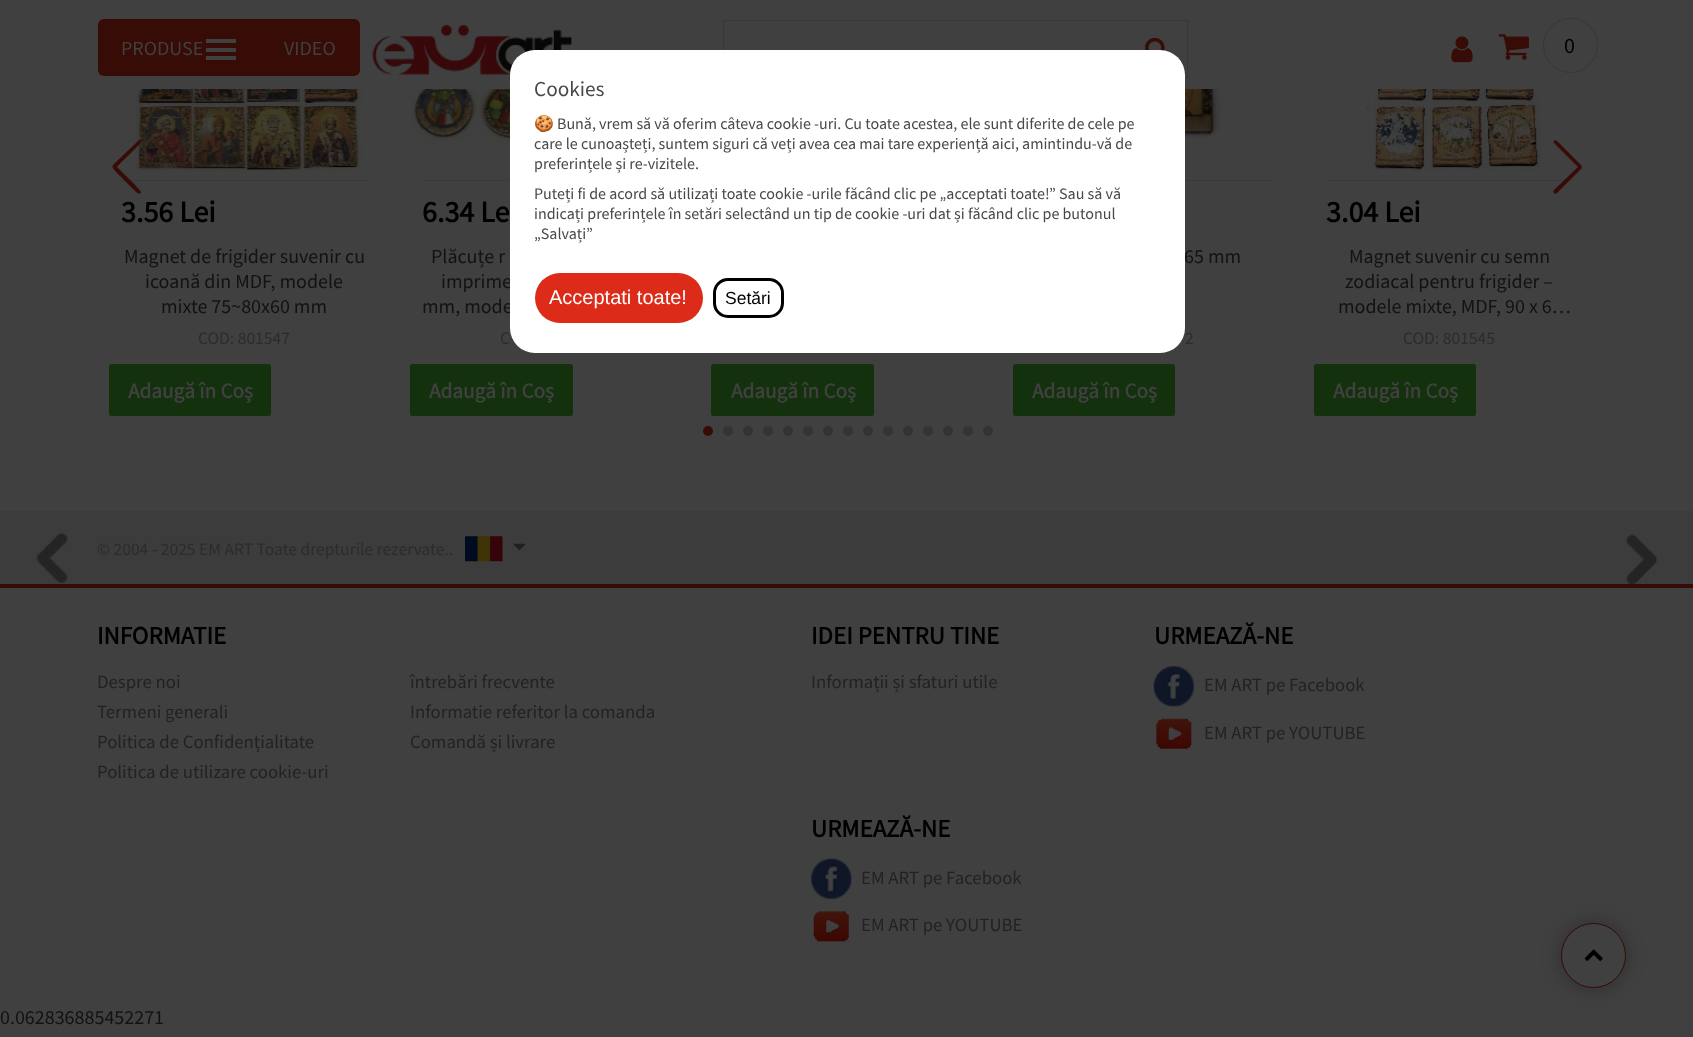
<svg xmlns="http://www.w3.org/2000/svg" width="1693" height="1037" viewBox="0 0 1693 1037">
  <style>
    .t1 { font: 20px Source Sans Pro; fill: #404040; }
    .t2 { font: 22px Source Sans Pro; fill: #000; }
    .t3 { font: 20px Source Sans Pro; fill: #121212; }
    .t4 { font: 21.25px Source Sans Pro; fill: #484848; }
    .t5 { font: 16px Noto Color Emoji; fill: #484848; }
    .t6 { font: 16px Source Sans Pro; fill: #484848; }
    .t7 { font: 20px Liberation Sans; fill: #fff; }
    .t8 { font: 17.5px Liberation Sans; fill: #000; }
    .t9 { font: bold 30px Source Sans Pro; fill: #000; }
    .t10 { font: 17.5px Source Sans Pro; fill: #2c2c2c; }
    .t11 { font: bold 21.25px Source Sans Pro; fill: #404040; }
    .t12 { font: bold 25px Source Sans Pro; fill: #000; }
    .t13 { font: 18.75px Source Sans Pro; fill: #222; }
  </style>
  <rect width="100%" height="100%" fill="#404040"/>
  <rect x="98" y="19" width="262" height="57" rx="6" fill="#370b06"/>
  <text x="121" y="55" class="t1">PRODUSE</text>
  <rect x="206" y="48" width="30" height="4" fill="#404040"/>
  <rect x="206" y="39" width="30" height="4" fill="#404040"/>
  <rect x="206" y="56" width="30" height="4" fill="#404040"/>
  <text x="284" y="55" class="t1">VIDEO</text>
  <image x="372" y="25" width="201" height="50" href="images/1.png"/>
  <rect x="723.5" y="20.5" width="464" height="57" fill="none" stroke="#373737"/>
  <image x="1145" y="37" width="20" height="14" href="images/2.png"/>
  <image x="1451" y="36" width="22" height="27" href="images/3.png"/>
  <image x="1498" y="34" width="31" height="26" href="images/4.png"/>
  <circle cx="1570.5" cy="45.5" r="27" fill="none" stroke="#373737"/>
  <text x="1564" y="53" class="t2">0</text>
  <text x="441" y="288" class="t3">imprime</text>
  <text x="422" y="313" class="t3">mm, mode</text>
  <text x="1184" y="263" class="t3">65 mm</text>
  <rect x="510" y="50" width="675" height="303" rx="25" fill="#fff"/>
  <text x="534" y="96" class="t4">Cookies</text>
  <text x="534" y="129" class="t5">🍪</text>
  <text x="557" y="129" class="t6">Bună, vrem să vă oferim câteva cookie -uri. Cu toate acestea, ele sunt diferite de cele pe</text>
  <text x="534" y="149" class="t6">care le cunoașteți, suntem siguri că veți avea cea mai tare experiență aici, amintindu-vă de</text>
  <text x="534" y="169" class="t6">preferințele și re-vizitele.</text>
  <text x="534" y="199" class="t6">Puteți fi de acord să utilizați toate cookie -urile făcând clic pe „acceptati toate!” Sau să vă</text>
  <text x="534" y="219" class="t6">indicați preferințele în setări selectând un tip de cookie -uri dat și făcând clic pe butonul</text>
  <text x="534" y="239" class="t6">„Salvați”</text>
  <rect x="535" y="273" width="168" height="50" rx="25" fill="#dc2b19"/>
  <text x="549" y="304" class="t7">Аcceptati toate!</text>
  <rect x="714.5" y="279.5" width="68" height="37" rx="13.5" fill="none" stroke="#000" stroke-width="3"/>
  <text x="725" y="304" class="t8">Setări</text>
  <image x="126" y="89" width="241" height="84" href="images/5.png"/>
  <rect x="121" y="180" width="248" height="1" fill="#3a3a3a"/>
  <path d="M138 141C139 140 141 140 141 142C141 144 119 164 117 167C120 170 141 190 141 192C140 196 136 192 133 189L117 173C111 166 111 167 117 161Z" fill="#370b06"/>
  <rect x="1326" y="180" width="248" height="1" fill="#3a3a3a"/>
  <path d="M1554 193C1553 192 1553 191 1554 190L1578 167L1554 143C1553 142 1553 142 1554 141C1555 140 1556 140 1557 141L1581 165L1582 167L1581 169L1557 193C1556 194 1555 194 1554 193Z" fill="#370b06"/>
  <text x="121" y="222" class="t9">3.56 Lei</text>
  <text x="124" y="263" class="t3">Magnet de frigider suvenir cu</text>
  <text x="145" y="288" class="t3">icoană din MDF, modele</text>
  <text x="161" y="313" class="t3">mixte 75~80x60 mm</text>
  <text x="198" y="344" class="t10">COD: 801547</text>
  <rect x="109" y="364" width="162" height="52" rx="2.5" fill="#12310c"/>
  <text x="128" y="398" class="t11">Adaugă în Coş</text>
  <image x="411" y="89" width="99" height="55" href="images/6.png"/>
  <rect x="423" y="180" width="87" height="1" fill="#3a3a3a"/>
  <text x="422" y="222" class="t9">6.34 Le</text>
  <text x="431" y="263" class="t3">Plăcuțe r</text>
  <text x="500" y="344" class="t10">C</text>
  <rect x="410" y="364" width="163" height="52" rx="2.5" fill="#12310c"/>
  <text x="429" y="398" class="t11">Adaugă în Coş</text>
  <rect x="711" y="364" width="163" height="52" rx="2.5" fill="#12310c"/>
  <text x="731" y="398" class="t11">Adaugă în Coş</text>
  <image x="1185" y="89" width="37" height="50" href="images/7.png"/>
  <rect x="1185" y="180" width="88" height="1" fill="#3a3a3a"/>
  <text x="1185" y="344" class="t10">2</text>
  <rect x="1013" y="364" width="162" height="52" rx="2.5" fill="#12310c"/>
  <text x="1032" y="398" class="t11">Adaugă în Coş</text>
  <image x="1366" y="89" width="175" height="84" href="images/8.png"/>
  <text x="1326" y="222" class="t9">3.04 Lei</text>
  <text x="1349" y="263" class="t3">Magnet suvenir cu semn</text>
  <text x="1345" y="288" class="t3">zodiacal pentru frigider –</text>
  <text x="1338" y="313" class="t3">modele mixte, MDF, 90 x 6…</text>
  <text x="1403" y="344" class="t10">COD: 801545</text>
  <rect x="1314" y="364" width="162" height="52" rx="2.5" fill="#12310c"/>
  <text x="1333" y="398" class="t11">Adaugă în Coş</text>
  <circle cx="708" cy="431" r="5" fill="#370b06"/>
  <circle cx="728" cy="431" r="5" fill="#333"/>
  <circle cx="748" cy="431" r="5" fill="#333"/>
  <circle cx="768" cy="431" r="5" fill="#333"/>
  <circle cx="788" cy="431" r="5" fill="#333"/>
  <circle cx="808" cy="431" r="5" fill="#333"/>
  <circle cx="828" cy="431" r="5" fill="#333"/>
  <circle cx="848" cy="431" r="5" fill="#333"/>
  <circle cx="868" cy="431" r="5" fill="#333"/>
  <circle cx="888" cy="431" r="5" fill="#333"/>
  <circle cx="908" cy="431" r="5" fill="#333"/>
  <circle cx="928" cy="431" r="5" fill="#333"/>
  <circle cx="948" cy="431" r="5" fill="#333"/>
  <circle cx="968" cy="431" r="5" fill="#333"/>
  <circle cx="988" cy="431" r="5" fill="#333"/>
  <rect x="0" y="511" width="1693" height="73" fill="#3d3c3c"/>
  <image x="36" y="533" width="32" height="51" href="images/9.png"/>
  <rect x="0" y="584" width="1693" height="4" fill="#370b06"/>
  <text x="97" y="555" class="t10">© 2004 - 2025 EM ART Toate drepturile rezervate..</text>
  <image x="465" y="536" width="38" height="26" href="images/10.png"/>
  <image x="513" y="543" width="13" height="8" href="images/11.png"/>
  <text x="97" y="644" class="t12">INFORMATIE</text>
  <text x="97" y="688" class="t13">Despre noi</text>
  <text x="97" y="718" class="t13">Termeni generali</text>
  <text x="97" y="748" class="t13">Politica de Confidențialitate</text>
  <text x="97" y="778" class="t13">Politica de utilizare cookie-uri</text>
  <text x="410" y="688" class="t13">întrebări frecvente</text>
  <text x="410" y="718" class="t13">Informatie referitor la comanda</text>
  <text x="410" y="748" class="t13">Comandă și livrare</text>
  <text x="811" y="644" class="t12">IDEI PENTRU TINE</text>
  <text x="811" y="688" class="t13">Informații și sfaturi utile</text>
  <text x="1154" y="644" class="t12">URMEAZĂ-NE</text>
  <image x="1153" y="666" width="41" height="41" href="images/12.png"/>
  <text x="1204" y="691" class="t13">EM ART pe Facebook</text>
  <image x="1156" y="718" width="36" height="31" href="images/13.png"/>
  <text x="1204" y="739" class="t13">EM ART pe YOUTUBE</text>
  <text x="811" y="837" class="t12">URMEAZĂ-NE</text>
  <image x="811" y="858" width="41" height="41" href="images/14.png"/>
  <text x="861" y="884" class="t13">EM ART pe Facebook</text>
  <image x="813" y="911" width="36" height="31" href="images/15.png"/>
  <text x="861" y="931" class="t13">EM ART pe YOUTUBE</text>
  <image x="1626" y="534" width="32" height="51" href="images/16.png"/>
  <text x="0" y="1024" class="t3">0.062836885452271</text>
  <rect x="1561" y="923" width="65" height="65" rx="32.5" fill="#0000004d" filter="blur(9.5px)"/>
  <circle cx="1593.5" cy="955.5" r="32" fill="#404040" stroke="#370b06"/>
  <image x="1584" y="949" width="19" height="12" href="images/17.png"/>
</svg>
